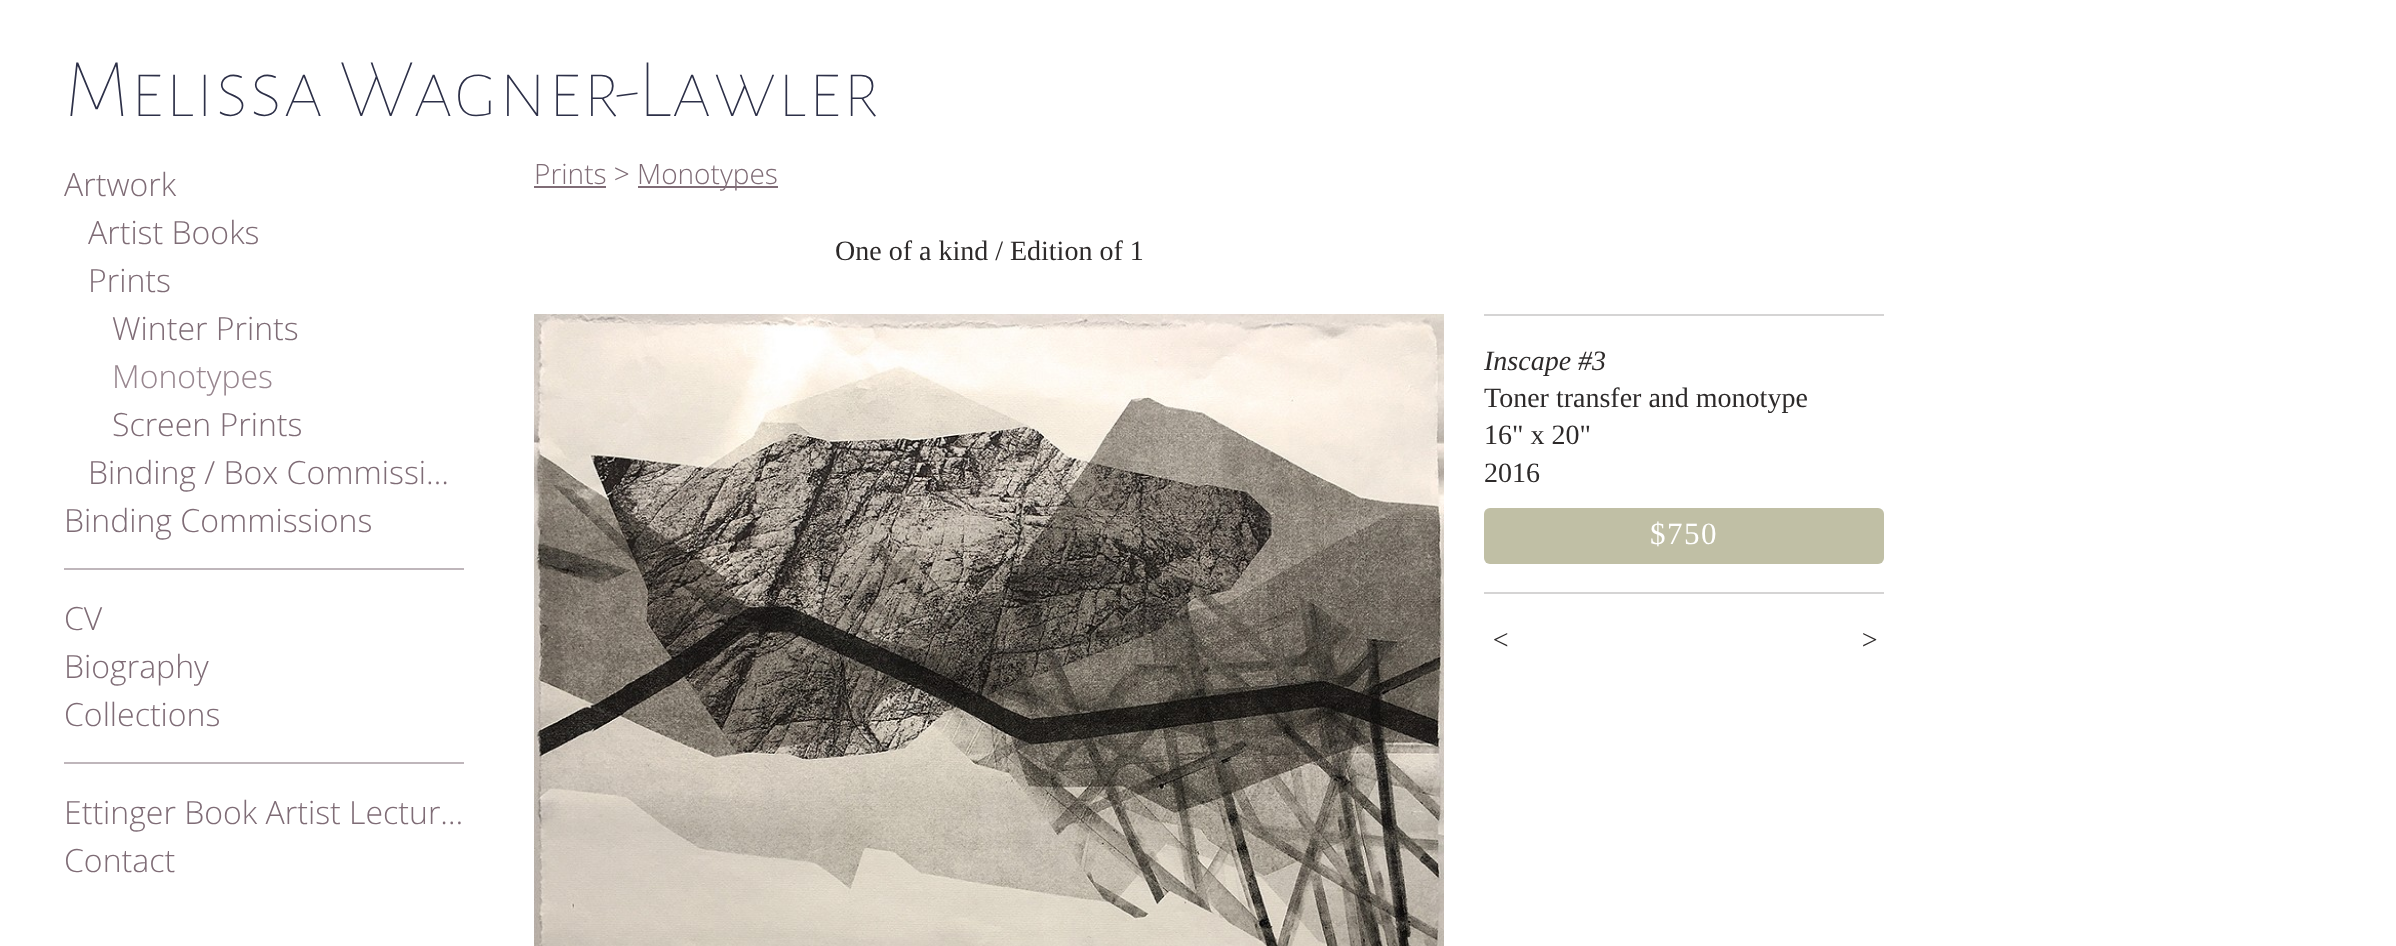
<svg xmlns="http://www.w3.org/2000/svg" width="2396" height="946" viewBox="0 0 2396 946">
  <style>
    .t1 { font: 100 84px Alegreya Sans SC; fill: #2d3048; }
    .t2 { font: 300 32px Open Sans; fill: #7f6c76; }
    .t3 { font: 300 32px Open Sans; fill: #98868f; }
    .t4 { font: 300 28px Open Sans; fill: #7f6c76; }
    .t5 { font: 28px Liberation Serif; fill: #2d2a2a; }
    .t6 { font: italic 28px Liberation Serif; fill: #2d2a2a; }
    .t7 { font: 31px Liberation Serif; letter-spacing: 1.5px; fill: #fff; }
    .t8 { font: italic 28px Liberation Serif; letter-spacing: 2px; fill: #2d2a2a; }
  </style>
  <rect width="100%" height="100%" fill="#fff"/>
  <text x="64" y="116" class="t1">Melissa Wagner-Lawler</text>
  <text x="64" y="196" class="t2">Artwork</text>
  <text x="88" y="244" class="t2">Artist Books</text>
  <text x="88" y="292" class="t2">Prints</text>
  <text x="112" y="340" class="t2">Winter Prints</text>
  <text x="112" y="388" class="t3">Monotypes</text>
  <text x="112" y="436" class="t2">Screen Prints</text>
  <text x="88" y="484" class="t2">Binding / Box Commissi…</text>
  <text x="64" y="532" class="t2">Binding Commissions</text>
  <rect x="64" y="568" width="400" height="2" fill="#bfb6bb"/>
  <text x="64" y="630" class="t2">CV</text>
  <text x="64" y="678" class="t2">Biography</text>
  <text x="64" y="726" class="t2">Collections</text>
  <rect x="64" y="762" width="400" height="2" fill="#bfb6bb"/>
  <text x="64" y="824" class="t2">Ettinger Book Artist Lectur…</text>
  <text x="64" y="872" class="t2">Contact</text>
  <text x="534" y="184" class="t4">Prints &gt;</text>
  <rect x="534" y="186" width="72" height="2" fill="#7f6c76"/>
  <rect x="638" y="186" width="140" height="2" fill="#7f6c76"/>
  <text x="637" y="184" class="t4">Monotypes</text>
  <text x="835" y="260" class="t5">One of a kind / Edition of 1</text>
  <image x="534" y="314" width="910" height="632" href="images/1.png"/>
  <rect x="1484" y="314" width="400" height="2" fill="#d5d4d4"/>
  <text x="1484" y="370" class="t6">Inscape #3</text>
  <text x="1484" y="407" class="t5">Toner transfer and monotype</text>
  <text x="1484" y="444" class="t5">16" x 20"</text>
  <text x="1484" y="482" class="t5">2016</text>
  <rect x="1484" y="508" width="400" height="56" rx="6" fill="#c0bfa5"/>
  <text x="1650" y="544" class="t7">$750</text>
  <rect x="1484" y="592" width="400" height="2" fill="#d5d4d4"/>
  <text x="1491" y="649" class="t8">&lt;</text>
  <text x="1860" y="649" class="t8">&gt;</text>
</svg>
